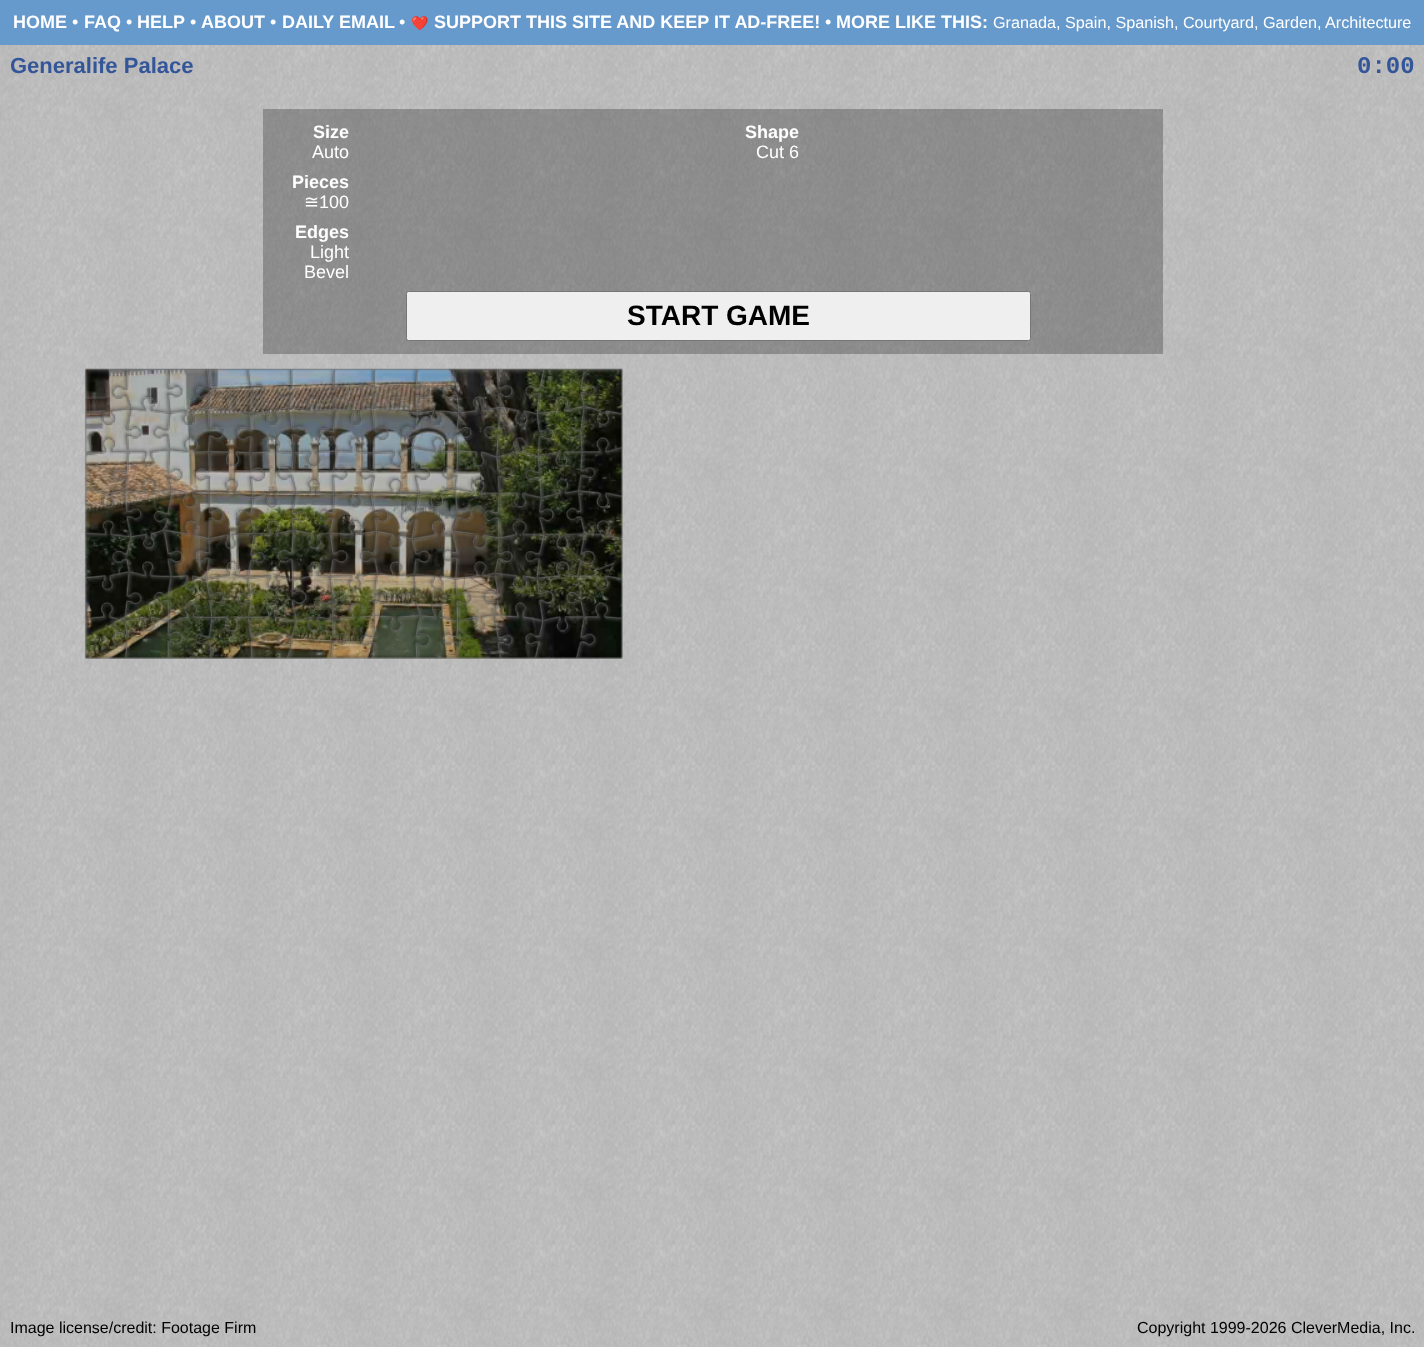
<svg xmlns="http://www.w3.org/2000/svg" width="1424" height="1347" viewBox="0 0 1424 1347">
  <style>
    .t1 { font: bold 18px Liberation Sans; fill: #fff; }
    .t2 { font: 18px Liberation Sans; fill: #fff; }
    .t3 { font: 14px Noto Color Emoji; fill: #fff; }
    .t4 { font: 16.2px Liberation Sans; fill: #fff; }
    .t5 { font: bold 22px Liberation Sans; fill: #359; }
    .t6 { font: bold 24px Liberation Mono; fill: #359; }
    .t7 { font: 18px DejaVu Sans; fill: #fff; }
    .t8 { font: bold 28px Liberation Sans; fill: #000; }
    .t9 { font: 16px Liberation Sans; fill: #000; }
  </style>
  <rect width="100%" height="100%" fill="#69c"/>
  <text x="13" y="28" class="t1">HOME</text>
  <text x="72" y="28" class="t2">•</text>
  <text x="84" y="28" class="t1">FAQ</text>
  <text x="126" y="28" class="t2">•</text>
  <text x="137" y="28" class="t1">HELP</text>
  <text x="190" y="28" class="t2">•</text>
  <text x="201" y="28" class="t1">ABOUT</text>
  <text x="270" y="28" class="t2">•</text>
  <text x="282" y="28" class="t1">DAILY EMAIL</text>
  <text x="399" y="28" class="t2">•</text>
  <text x="411" y="28" class="t3">❤️</text>
  <text x="434" y="28" class="t1">SUPPORT THIS SITE AND KEEP IT AD-FREE!</text>
  <text x="825" y="28" class="t2">•</text>
  <text x="836" y="28" class="t1">MORE LIKE THIS:</text>
  <text x="993" y="28" class="t4">Granada, Spain, Spanish, Courtyard, Garden,</text>
  <text x="1325" y="28" class="t4">Architecture</text>
  <image x="0" y="45" width="1424" height="1302" href="images/1.png"/>
  <image x="84" y="368" width="48" height="57" href="images/2.png"/>
  <image x="112" y="368" width="71" height="46" href="images/3.png"/>
  <image x="167" y="368" width="44" height="57" href="images/4.png"/>
  <image x="195" y="368" width="70" height="49" href="images/5.png"/>
  <image x="247" y="368" width="46" height="57" href="images/6.png"/>
  <image x="277" y="368" width="71" height="44" href="images/7.png"/>
  <image x="332" y="368" width="44" height="57" href="images/8.png"/>
  <image x="360" y="368" width="70" height="46" href="images/9.png"/>
  <image x="415" y="368" width="46" height="57" href="images/10.png"/>
  <image x="442" y="368" width="71" height="46" href="images/11.png"/>
  <image x="497" y="368" width="48" height="57" href="images/12.png"/>
  <image x="525" y="368" width="70" height="47" href="images/13.png"/>
  <image x="580" y="368" width="43" height="57" href="images/14.png"/>
  <image x="84" y="408" width="58" height="48" href="images/15.png"/>
  <image x="126" y="396" width="45" height="71" href="images/16.png"/>
  <image x="153" y="407" width="71" height="46" href="images/17.png"/>
  <image x="207" y="396" width="45" height="71" href="images/18.png"/>
  <image x="236" y="407" width="71" height="47" href="images/19.png"/>
  <image x="288" y="396" width="50" height="71" href="images/20.png"/>
  <image x="318" y="407" width="71" height="47" href="images/21.png"/>
  <image x="372" y="396" width="46" height="71" href="images/22.png"/>
  <image x="401" y="410" width="71" height="43" href="images/23.png"/>
  <image x="456" y="396" width="46" height="71" href="images/24.png"/>
  <image x="484" y="406" width="70" height="52" href="images/25.png"/>
  <image x="537" y="396" width="49" height="71" href="images/26.png"/>
  <image x="566" y="406" width="57" height="47" href="images/27.png"/>
  <image x="84" y="437" width="45" height="71" href="images/28.png"/>
  <image x="112" y="449" width="71" height="45" href="images/29.png"/>
  <image x="168" y="437" width="43" height="71" href="images/30.png"/>
  <image x="195" y="451" width="70" height="48" href="images/31.png"/>
  <image x="249" y="437" width="48" height="71" href="images/32.png"/>
  <image x="277" y="450" width="71" height="46" href="images/33.png"/>
  <image x="332" y="437" width="44" height="71" href="images/34.png"/>
  <image x="360" y="447" width="70" height="47" href="images/35.png"/>
  <image x="412" y="437" width="47" height="71" href="images/36.png"/>
  <image x="442" y="450" width="71" height="44" href="images/37.png"/>
  <image x="496" y="437" width="46" height="71" href="images/38.png"/>
  <image x="525" y="451" width="70" height="47" href="images/39.png"/>
  <image x="578" y="437" width="45" height="71" href="images/40.png"/>
  <image x="84" y="487" width="58" height="51" href="images/41.png"/>
  <image x="124" y="479" width="49" height="70" href="images/42.png"/>
  <image x="154" y="488" width="70" height="52" href="images/43.png"/>
  <image x="208" y="478" width="48" height="71" href="images/44.png"/>
  <image x="236" y="492" width="71" height="44" href="images/45.png"/>
  <image x="291" y="478" width="44" height="71" href="images/46.png"/>
  <image x="318" y="492" width="71" height="44" href="images/47.png"/>
  <image x="370" y="478" width="50" height="71" href="images/48.png"/>
  <image x="401" y="488" width="71" height="53" href="images/49.png"/>
  <image x="451" y="478" width="50" height="71" href="images/50.png"/>
  <image x="484" y="492" width="70" height="47" href="images/51.png"/>
  <image x="539" y="478" width="47" height="71" href="images/52.png"/>
  <image x="566" y="490" width="57" height="50" href="images/53.png"/>
  <image x="84" y="520" width="48" height="70" href="images/54.png"/>
  <image x="112" y="529" width="71" height="49" href="images/55.png"/>
  <image x="163" y="520" width="48" height="70" href="images/56.png"/>
  <image x="195" y="532" width="70" height="48" href="images/57.png"/>
  <image x="247" y="520" width="47" height="70" href="images/58.png"/>
  <image x="277" y="529" width="71" height="53" href="images/59.png"/>
  <image x="329" y="520" width="49" height="70" href="images/60.png"/>
  <image x="360" y="531" width="70" height="46" href="images/61.png"/>
  <image x="411" y="520" width="47" height="70" href="images/62.png"/>
  <image x="442" y="530" width="71" height="50" href="images/63.png"/>
  <image x="493" y="520" width="52" height="70" href="images/64.png"/>
  <image x="525" y="533" width="70" height="46" href="images/65.png"/>
  <image x="577" y="520" width="46" height="70" href="images/66.png"/>
  <image x="84" y="571" width="58" height="51" href="images/67.png"/>
  <image x="123" y="561" width="49" height="71" href="images/68.png"/>
  <image x="154" y="575" width="70" height="48" href="images/69.png"/>
  <image x="205" y="561" width="47" height="71" href="images/70.png"/>
  <image x="236" y="575" width="71" height="47" href="images/71.png"/>
  <image x="291" y="561" width="43" height="71" href="images/72.png"/>
  <image x="318" y="572" width="71" height="49" href="images/73.png"/>
  <image x="373" y="561" width="49" height="71" href="images/74.png"/>
  <image x="401" y="574" width="71" height="48" href="images/75.png"/>
  <image x="455" y="561" width="44" height="71" href="images/76.png"/>
  <image x="483" y="572" width="71" height="50" href="images/77.png"/>
  <image x="536" y="561" width="50" height="71" href="images/78.png"/>
  <image x="566" y="575" width="57" height="44" href="images/79.png"/>
  <image x="84" y="602" width="44" height="57" href="images/80.png"/>
  <image x="113" y="616" width="70" height="43" href="images/81.png"/>
  <image x="168" y="602" width="45" height="57" href="images/82.png"/>
  <image x="195" y="616" width="70" height="43" href="images/83.png"/>
  <image x="248" y="602" width="49" height="57" href="images/84.png"/>
  <image x="277" y="616" width="71" height="43" href="images/85.png"/>
  <image x="330" y="602" width="46" height="57" href="images/86.png"/>
  <image x="360" y="615" width="70" height="44" href="images/87.png"/>
  <image x="415" y="602" width="44" height="57" href="images/88.png"/>
  <image x="442" y="615" width="71" height="44" href="images/89.png"/>
  <image x="494" y="602" width="50" height="57" href="images/90.png"/>
  <image x="525" y="616" width="70" height="43" href="images/91.png"/>
  <image x="576" y="602" width="47" height="57" href="images/92.png"/>
  <text x="10" y="73" class="t5">Generalife Palace</text>
  <text x="1357" y="73" class="t6">0:00</text>
  <rect x="263" y="109" width="900" height="245" fill="#00000040"/>
  <text x="313" y="138" class="t1">Size</text>
  <text x="312" y="158" class="t2">Auto</text>
  <text x="292" y="188" class="t1">Pieces</text>
  <text x="304" y="208" class="t7">≅</text>
  <text x="319" y="208" class="t2">100</text>
  <text x="295" y="238" class="t1">Edges</text>
  <text x="310" y="258" class="t2">Light</text>
  <text x="304" y="278" class="t2">Bevel</text>
  <text x="745" y="138" class="t1">Shape</text>
  <text x="756" y="158" class="t2">Cut 6</text>
  <rect x="406.5" y="291.5" width="624" height="49" rx="2" fill="#efefef" stroke="#767676"/>
  <text x="627" y="325" class="t8">START GAME</text>
  <text x="10" y="1333" class="t9">Image license/credit: Footage Firm</text>
  <text x="1137" y="1333" class="t9">Copyright 1999-2026 CleverMedia, Inc.</text>
</svg>
